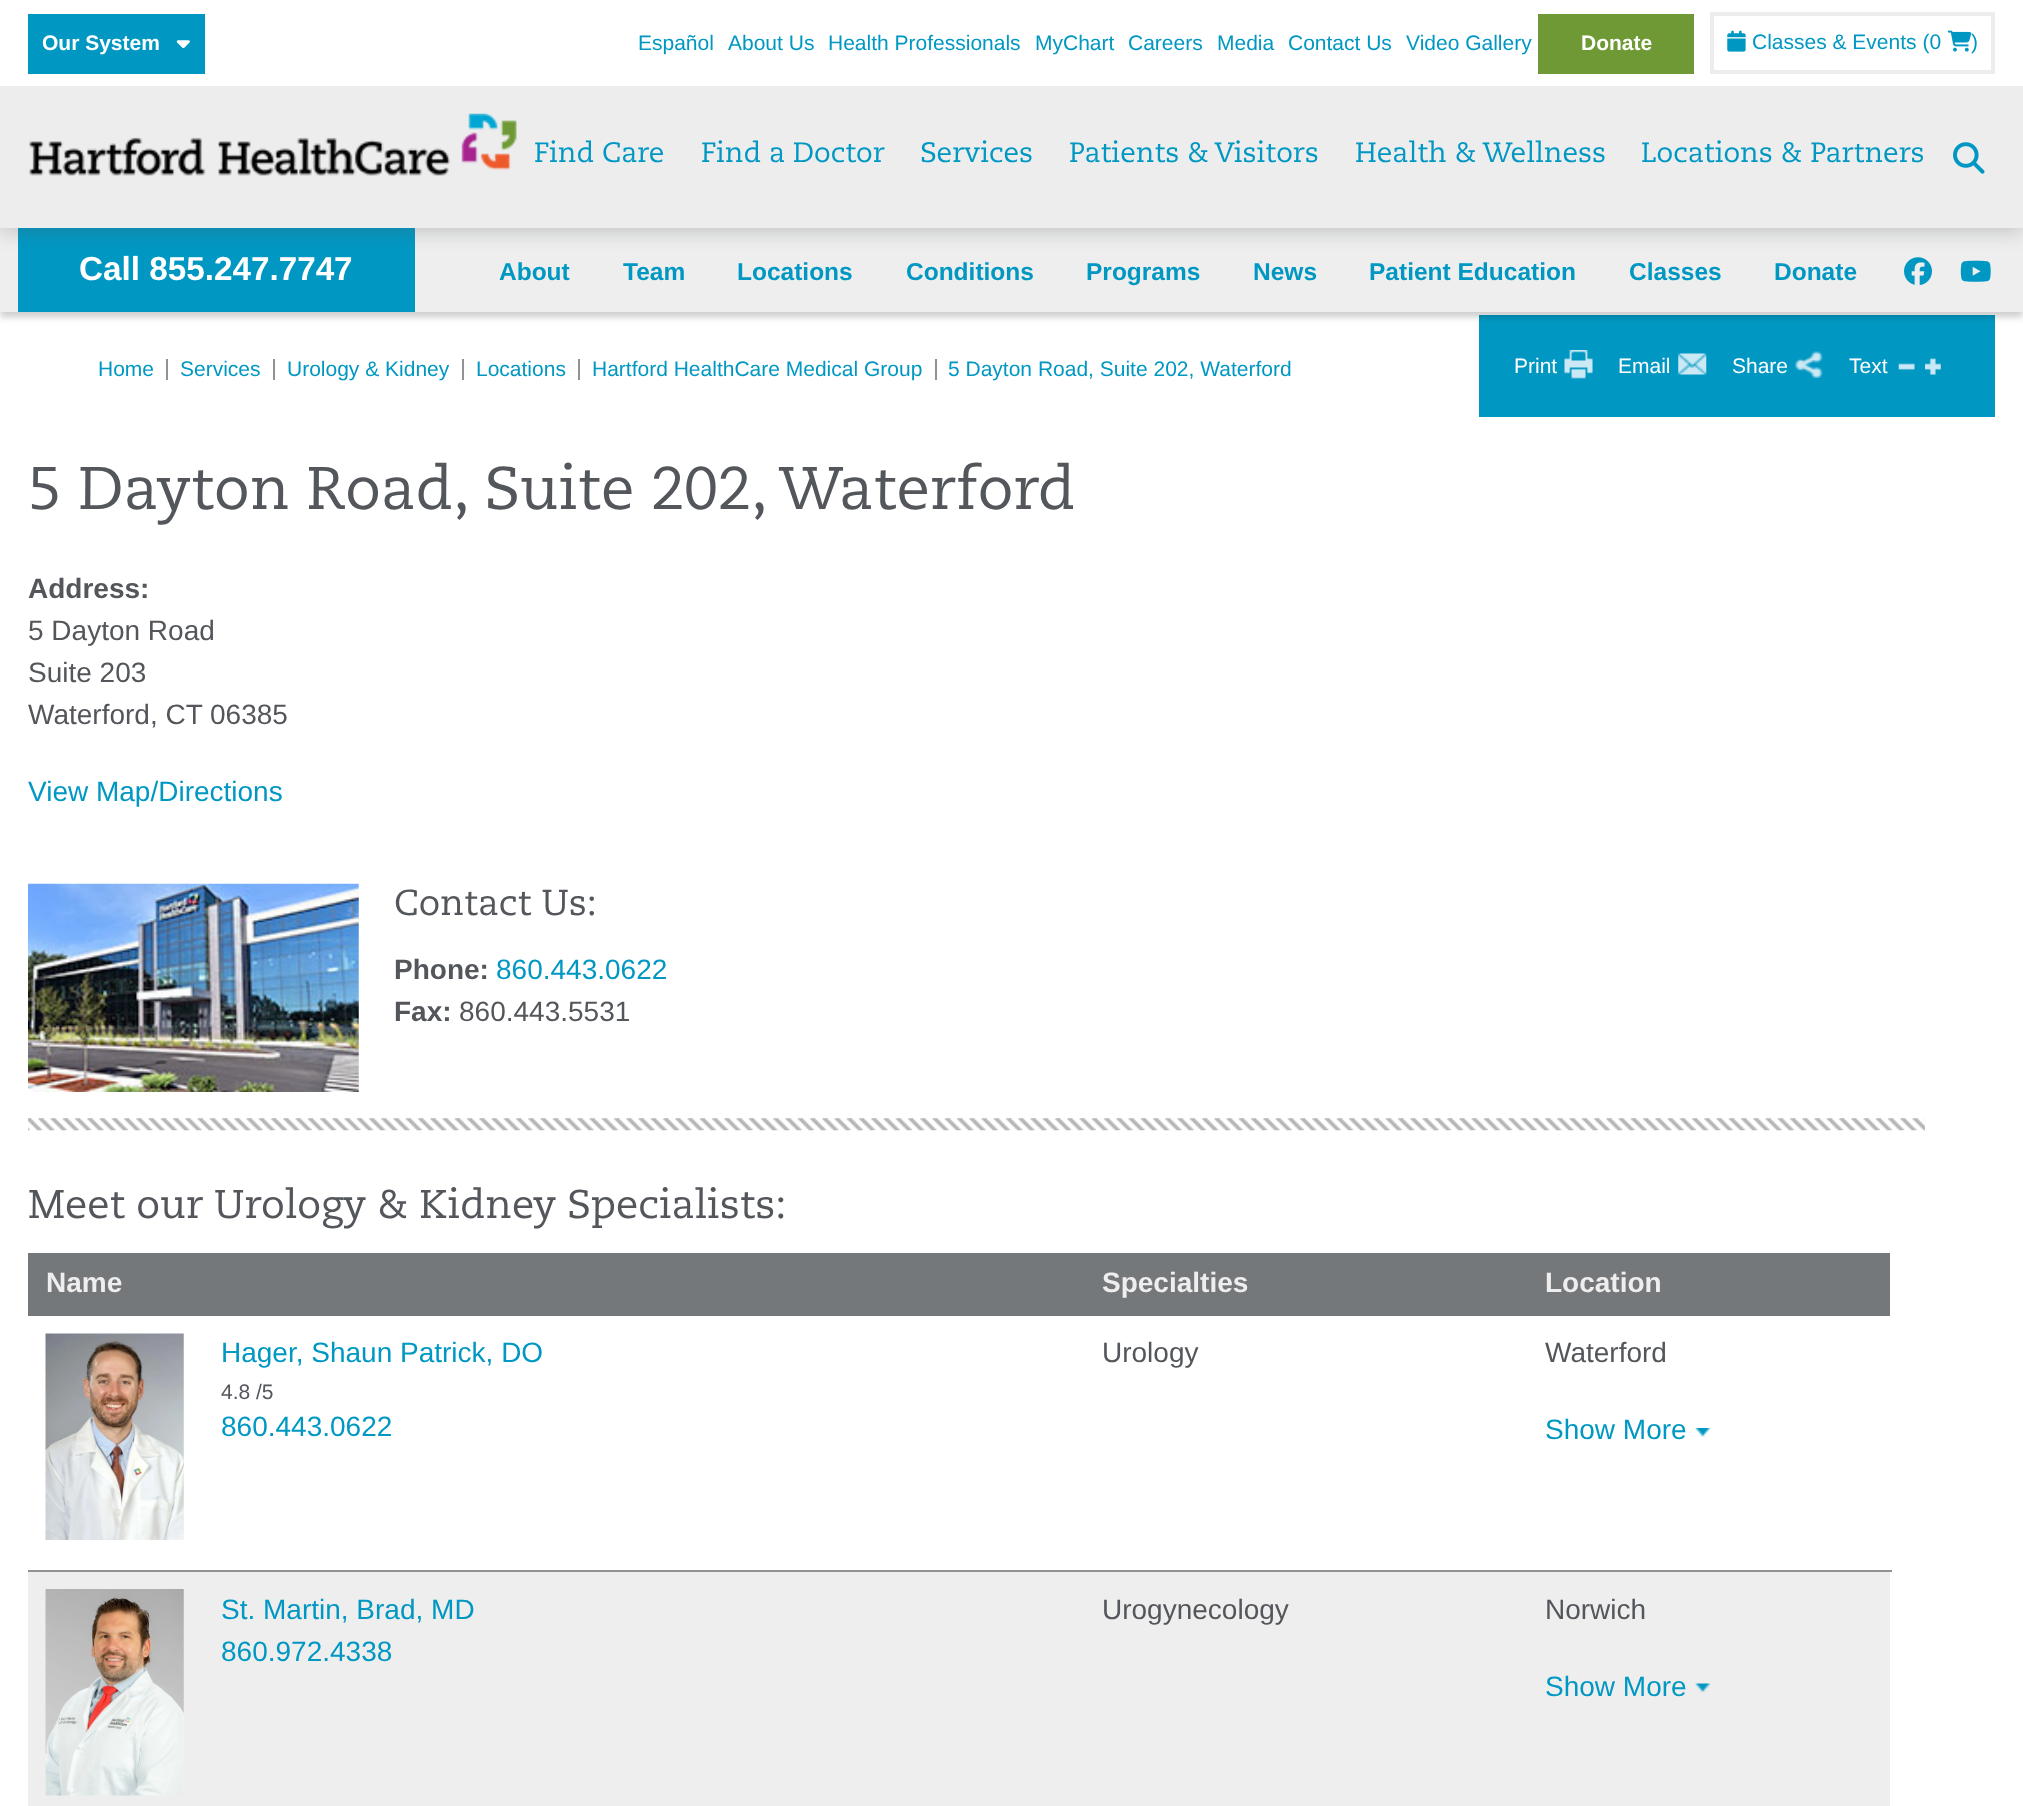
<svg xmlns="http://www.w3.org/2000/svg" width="2023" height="1806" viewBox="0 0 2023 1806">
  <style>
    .t1 { font: bold 21px Liberation Sans; fill: #fff; }
    .t2 { font: 21px Liberation Sans; fill: #0098c3; }
    .t3 { font: 28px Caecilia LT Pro; fill: #0098c3; }
    .t4 { font: bold 33.25px Liberation Sans; fill: #fff; }
    .t5 { font: bold 24.5px Liberation Sans; fill: #0098c3; }
    .t6 { font: 21px Liberation Sans; fill: #fff; }
    .t7 { font: 60px Caecilia LT Pro; fill: #53565a; }
    .t8 { font: bold 28px Liberation Sans; fill: #53565a; }
    .t9 { font: 28px Liberation Sans; fill: #53565a; }
    .t10 { font: 28px Liberation Sans; fill: #0098c3; }
    .t11 { font: 36px Caecilia LT Pro; fill: #53565a; }
    .t12 { font: 40px Caecilia LT Pro; fill: #53565a; }
    .t13 { font: bold 28px Liberation Sans; fill: #eee; }
    .t14 { font: 21px Liberation Sans; fill: #53565a; }
  </style>
  <rect width="100%" height="100%" fill="#fff"/>
  <rect x="1479" y="315" width="516" height="102" fill="#0098c3"/>
  <rect x="0" y="233" width="2023" height="84" fill="#00000033" filter="blur(3.5px)"/>
  <rect x="0" y="228" width="2023" height="84" fill="#eee"/>
  <rect x="18" y="228" width="397" height="84" fill="#0098c3"/>
  <image x="1904" y="257" width="28" height="29" href="images/6.png"/>
  <image x="1960" y="260" width="31" height="22" href="images/7.png"/>
  <rect x="0" y="5" width="2023" height="228" fill="#53565a40" filter="blur(9px)"/>
  <rect x="0" y="0" width="2023" height="86" fill="#fff"/>
  <rect x="28" y="14" width="177" height="60" fill="#0098c3"/>
  <text x="42" y="50" class="t1">Our System</text>
  <image x="176" y="40" width="14" height="9" href="images/1.png"/>
  <text x="638" y="50" class="t2">Español</text>
  <text x="728" y="50" class="t2">About Us</text>
  <text x="828" y="50" class="t2">Health Professionals</text>
  <text x="1035" y="50" class="t2">MyChart</text>
  <text x="1128" y="50" class="t2">Careers</text>
  <text x="1217" y="50" class="t2">Media</text>
  <text x="1288" y="50" class="t2">Contact Us</text>
  <text x="1406" y="50" class="t2">Video Gallery</text>
  <rect x="1538" y="14" width="156" height="60" fill="#6e9934"/>
  <text x="1581" y="50" class="t1">Donate</text>
  <rect x="1712" y="14" width="281" height="58" fill="none" stroke="#ededed" stroke-width="4"/>
  <image x="1727" y="30" width="19" height="22" href="images/2.png"/>
  <text x="1752" y="49" class="t2">Classes &amp; Events (0</text>
  <image x="1947" y="30" width="25" height="22" href="images/3.png"/>
  <text x="1971" y="49" class="t2">)</text>
  <rect x="0" y="86" width="2023" height="142" fill="#ededed"/>
  <image x="29" y="113" width="488" height="63" href="images/4.png"/>
  <text x="534" y="162" class="t3">Find Care</text>
  <text x="701" y="162" class="t3">Find a Doctor</text>
  <text x="920" y="162" class="t3">Services</text>
  <text x="1069" y="162" class="t3">Patients &amp; Visitors</text>
  <text x="1355" y="162" class="t3">Health &amp; Wellness</text>
  <text x="1641" y="162" class="t3">Locations &amp; Partners</text>
  <image x="1953" y="142" width="32" height="32" href="images/5.png"/>
  <text x="79" y="280" class="t4">Call 855.247.7747</text>
  <text x="499" y="280" class="t5">About</text>
  <text x="623" y="280" class="t5">Team</text>
  <text x="737" y="280" class="t5">Locations</text>
  <text x="906" y="280" class="t5">Conditions</text>
  <text x="1086" y="280" class="t5">Programs</text>
  <text x="1253" y="280" class="t5">News</text>
  <text x="1369" y="280" class="t5">Patient Education</text>
  <text x="1629" y="280" class="t5">Classes</text>
  <text x="1774" y="280" class="t5">Donate</text>
  <rect x="166" y="359" width="2" height="21" fill="#909294"/>
  <text x="98" y="376" class="t2">Home</text>
  <rect x="273" y="359" width="2" height="21" fill="#909294"/>
  <text x="180" y="376" class="t2">Services</text>
  <rect x="462" y="359" width="2" height="21" fill="#909294"/>
  <text x="287" y="376" class="t2">Urology &amp; Kidney</text>
  <rect x="578" y="359" width="2" height="21" fill="#909294"/>
  <text x="476" y="376" class="t2">Locations</text>
  <rect x="935" y="359" width="2" height="21" fill="#909294"/>
  <text x="592" y="376" class="t2">Hartford HealthCare Medical Group</text>
  <text x="948" y="376" class="t2">5 Dayton Road, Suite 202, Waterford</text>
  <image x="1564" y="350" width="29" height="29" href="images/8.png"/>
  <text x="1514" y="373" class="t6">Print</text>
  <image x="1678" y="353" width="29" height="22" href="images/9.png"/>
  <text x="1618" y="373" class="t6">Email</text>
  <image x="1795" y="351" width="28" height="27" href="images/10.png"/>
  <text x="1732" y="373" class="t6">Share</text>
  <text x="1849" y="373" class="t6">Text</text>
  <image x="1898" y="363" width="17" height="7" href="images/11.png"/>
  <image x="1925" y="358" width="16" height="17" href="images/12.png"/>
  <text x="28" y="509" class="t7">5 Dayton Road, Suite 202, Waterford</text>
  <text x="28" y="598" class="t8">Address:</text>
  <text x="28" y="640" class="t9">5 Dayton Road</text>
  <text x="28" y="682" class="t9">Suite 203</text>
  <text x="28" y="724" class="t9">Waterford, CT 06385</text>
  <text x="28" y="801" class="t10">View Map/Directions</text>
  <image x="28" y="883" width="331" height="209" href="images/13.png"/>
  <text x="394" y="915" class="t11">Contact Us:</text>
  <text x="394" y="979" class="t8">Phone:</text>
  <text x="496" y="979" class="t10">860.443.0622</text>
  <text x="394" y="1021" class="t8">Fax:</text>
  <text x="459" y="1021" class="t9">860.443.5531</text>
  <image x="28" y="1118" width="1897" height="13" href="images/14.png"/>
  <text x="28" y="1218" class="t12">Meet our Urology &amp; Kidney Specialists:</text>
  <rect x="28" y="1253" width="1862" height="63" fill="#75787b"/>
  <text x="46" y="1292" class="t13">Name</text>
  <text x="1102" y="1292" class="t13">Specialties</text>
  <text x="1545" y="1292" class="t13">Location</text>
  <rect x="28" y="1570" width="1864" height="2" fill="#909294"/>
  <image x="45" y="1333" width="139" height="207" href="images/15.png"/>
  <text x="221" y="1362" class="t10">Hager, Shaun Patrick, DO</text>
  <text x="221" y="1399" class="t14">4.8 /5</text>
  <text x="221" y="1436" class="t10">860.443.0622</text>
  <text x="1102" y="1362" class="t9">Urology</text>
  <text x="1545" y="1362" class="t9">Waterford</text>
  <text x="1545" y="1439" class="t10">Show More</text>
  <image x="1695" y="1428" width="15" height="9" href="images/16.png"/>
  <rect x="28" y="1572" width="1862" height="234" fill="#eee"/>
  <image x="45" y="1589" width="139" height="207" href="images/17.png"/>
  <text x="221" y="1619" class="t10">St. Martin, Brad, MD</text>
  <text x="221" y="1661" class="t10">860.972.4338</text>
  <text x="1102" y="1619" class="t9">Urogynecology</text>
  <text x="1545" y="1619" class="t9">Norwich</text>
  <text x="1545" y="1696" class="t10">Show More</text>
  <image x="1695" y="1683" width="15" height="10" href="images/18.png"/>
</svg>
